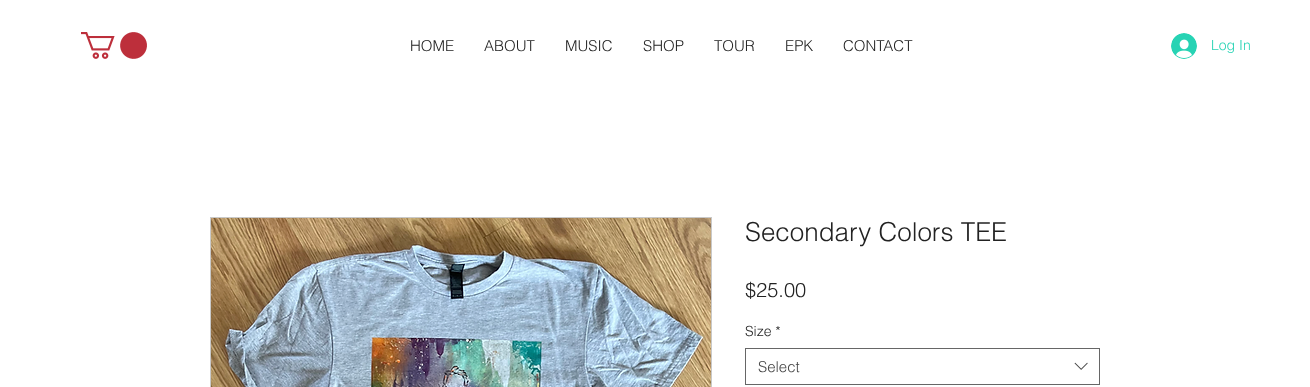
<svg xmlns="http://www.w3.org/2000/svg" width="1310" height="387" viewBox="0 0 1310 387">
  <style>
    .t1 { font: 300 15px helvetica; fill: #222; }
    .t2 { font: 300 14px helvetica; fill: #27d3b4; }
    .t3 { font: 300 26px helvetica; fill: #222; }
    .t4 { font: 300 20px helvetica; fill: #222; }
    .t5 { font: 300 14px helvetica; fill: #222; }
    .t6 { font: 300 15px helvetica; fill: #444; }
  </style>
  <rect width="100%" height="100%" fill="#fff"/>
  <image x="81" y="32" width="66" height="27" href="images/1.png"/>
  <text x="410" y="51" class="t1">HOME</text>
  <text x="484" y="51" class="t1">ABOUT</text>
  <text x="565" y="51" class="t1">MUSIC</text>
  <text x="643" y="51" class="t1">SHOP</text>
  <text x="714" y="51" class="t1">TOUR</text>
  <text x="785" y="51" class="t1">EPK</text>
  <text x="843" y="51" class="t1">CONTACT</text>
  <image x="1171" y="33" width="26" height="26" href="images/2.png"/>
  <text x="1211" y="50" class="t2">Log In</text>
  <rect x="210.5" y="217.5" width="501" height="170" fill="none" stroke="#c9c9c9"/>
  <image x="211" y="218" width="500" height="169" href="images/3.png"/>
  <text x="745" y="241" class="t3">Secondary Colors TEE</text>
  <text x="745" y="297" class="t4">$25.00</text>
  <text x="745" y="336" class="t5">Size *</text>
  <rect x="745.5" y="348.5" width="354" height="36" fill="none" stroke="#666"/>
  <text x="758" y="372" class="t6">Select</text>
  <image x="1074" y="362" width="14" height="8" href="images/4.png"/>
</svg>
